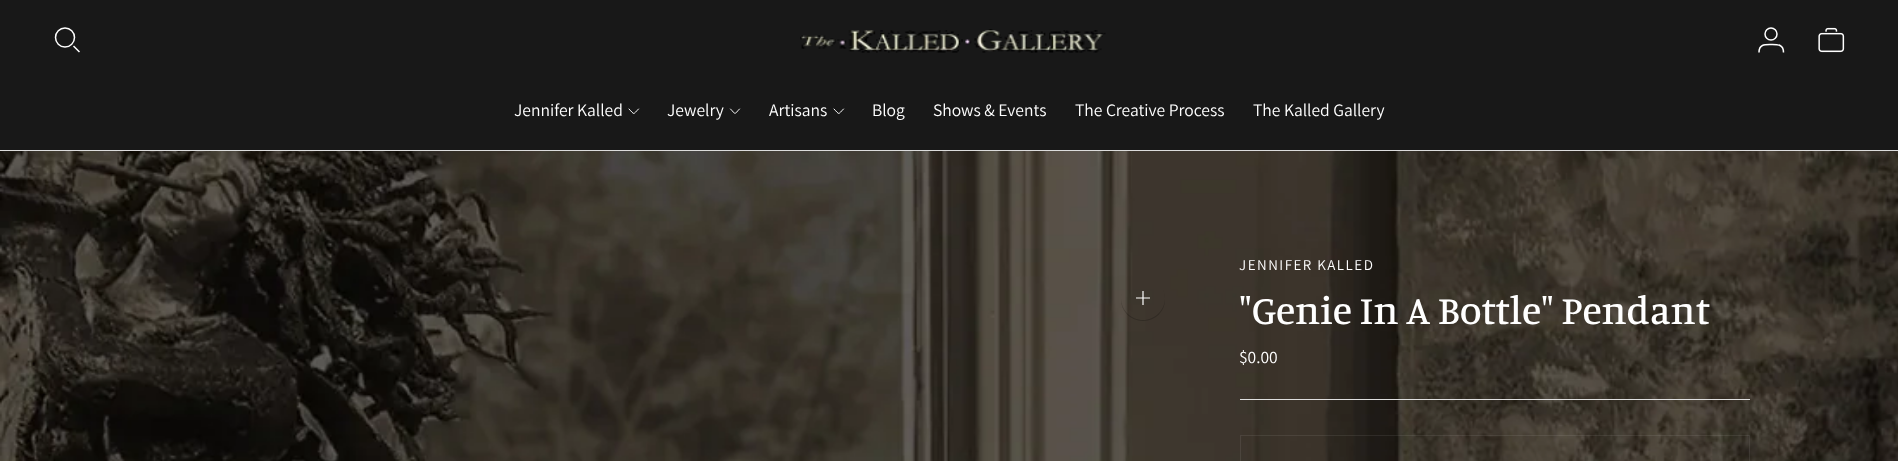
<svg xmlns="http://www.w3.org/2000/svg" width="1898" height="461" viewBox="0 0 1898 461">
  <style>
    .t1 { font: 17.5px Assistant; fill: #fff; }
    .t2 { font: 15px Assistant; letter-spacing: 1.5px; fill: #fff; }
    .t3 { font: 500 40px Manuale; fill: #fff; }
  </style>
  <defs>
    <clipPath id="clip1"><path d="M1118 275H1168V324H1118ZM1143 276C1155 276 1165 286 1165 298C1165 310 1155 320 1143 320C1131 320 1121 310 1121 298C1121 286 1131 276 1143 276Z" clip-rule="evenodd"/></clipPath>
  </defs>
  <rect width="100%" height="100%" fill="#fff"/>
  <image x="0" y="151" width="1898" height="310" href="images/1.png"/>
  <rect x="0" y="0" width="1898" height="150" fill="#181818"/>
  <rect x="0" y="150" width="1898" height="1" fill="#dcdcdc"/>
  <circle cx="65" cy="37.5" r="9.5" fill="none" stroke="#fff" stroke-width="1.5"/>
  <path d="M73.5 46L79.5 52" fill="none" stroke="#fff" stroke-width="1.5"/>
  <image x="800" y="29" width="306" height="24" href="images/2.png"/>
  <circle cx="1771" cy="34" r="6" fill="none" stroke="#fff" stroke-width="1.5"/>
  <path d="M1759 52.5C1759 44 1765 44.5 1771 44.5C1777.5 44.5 1783.5 44 1783.5 52.5" fill="none" stroke="#fff" stroke-width="1.5"/>
  <image x="1818" y="27" width="27" height="26" href="images/3.png"/>
  <text x="514" y="116" class="t1">Jennifer Kalled</text>
  <path d="M629 109C635 115 632.5 115 638.5 109" fill="none" stroke="#fff" stroke-linecap="round" stroke-linejoin="round"/>
  <text x="667" y="116" class="t1">Jewelry</text>
  <path d="M730.5 109C736.5 115 733.5 115 739.5 109" fill="none" stroke="#fff" stroke-linecap="round" stroke-linejoin="round"/>
  <text x="769" y="116" class="t1">Artisans</text>
  <path d="M834 109C840 115 837.5 115 843.5 109" fill="none" stroke="#fff" stroke-linecap="round" stroke-linejoin="round"/>
  <text x="872" y="116" class="t1">Blog</text>
  <text x="933" y="116" class="t1">Shows &amp; Events</text>
  <text x="1075" y="116" class="t1">The Creative Process</text>
  <text x="1253" y="116" class="t1">The Kalled Gallery</text>
  <g clip-path="url(#clip1)">
    <rect x="1121" y="278" width="44" height="43" rx="21.5" fill="#00000033" filter="blur(0.5px)"/>
  </g>
  <path d="M1143 291V305M1136 298H1150" fill="none" stroke="#fff" stroke-width="1.2"/>
  <text x="1239" y="270" class="t2">JENNIFER KALLED</text>
  <text x="1239" y="324" class="t3">"Genie In A Bottle" Pendant</text>
  <text x="1239" y="363" class="t1">$0.00</text>
  <rect x="1240" y="399" width="510" height="1" fill="#dedede"/>
  <rect x="1240.5" y="435.5" width="509" height="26" fill="none" stroke="#ffffff14"/>
</svg>
